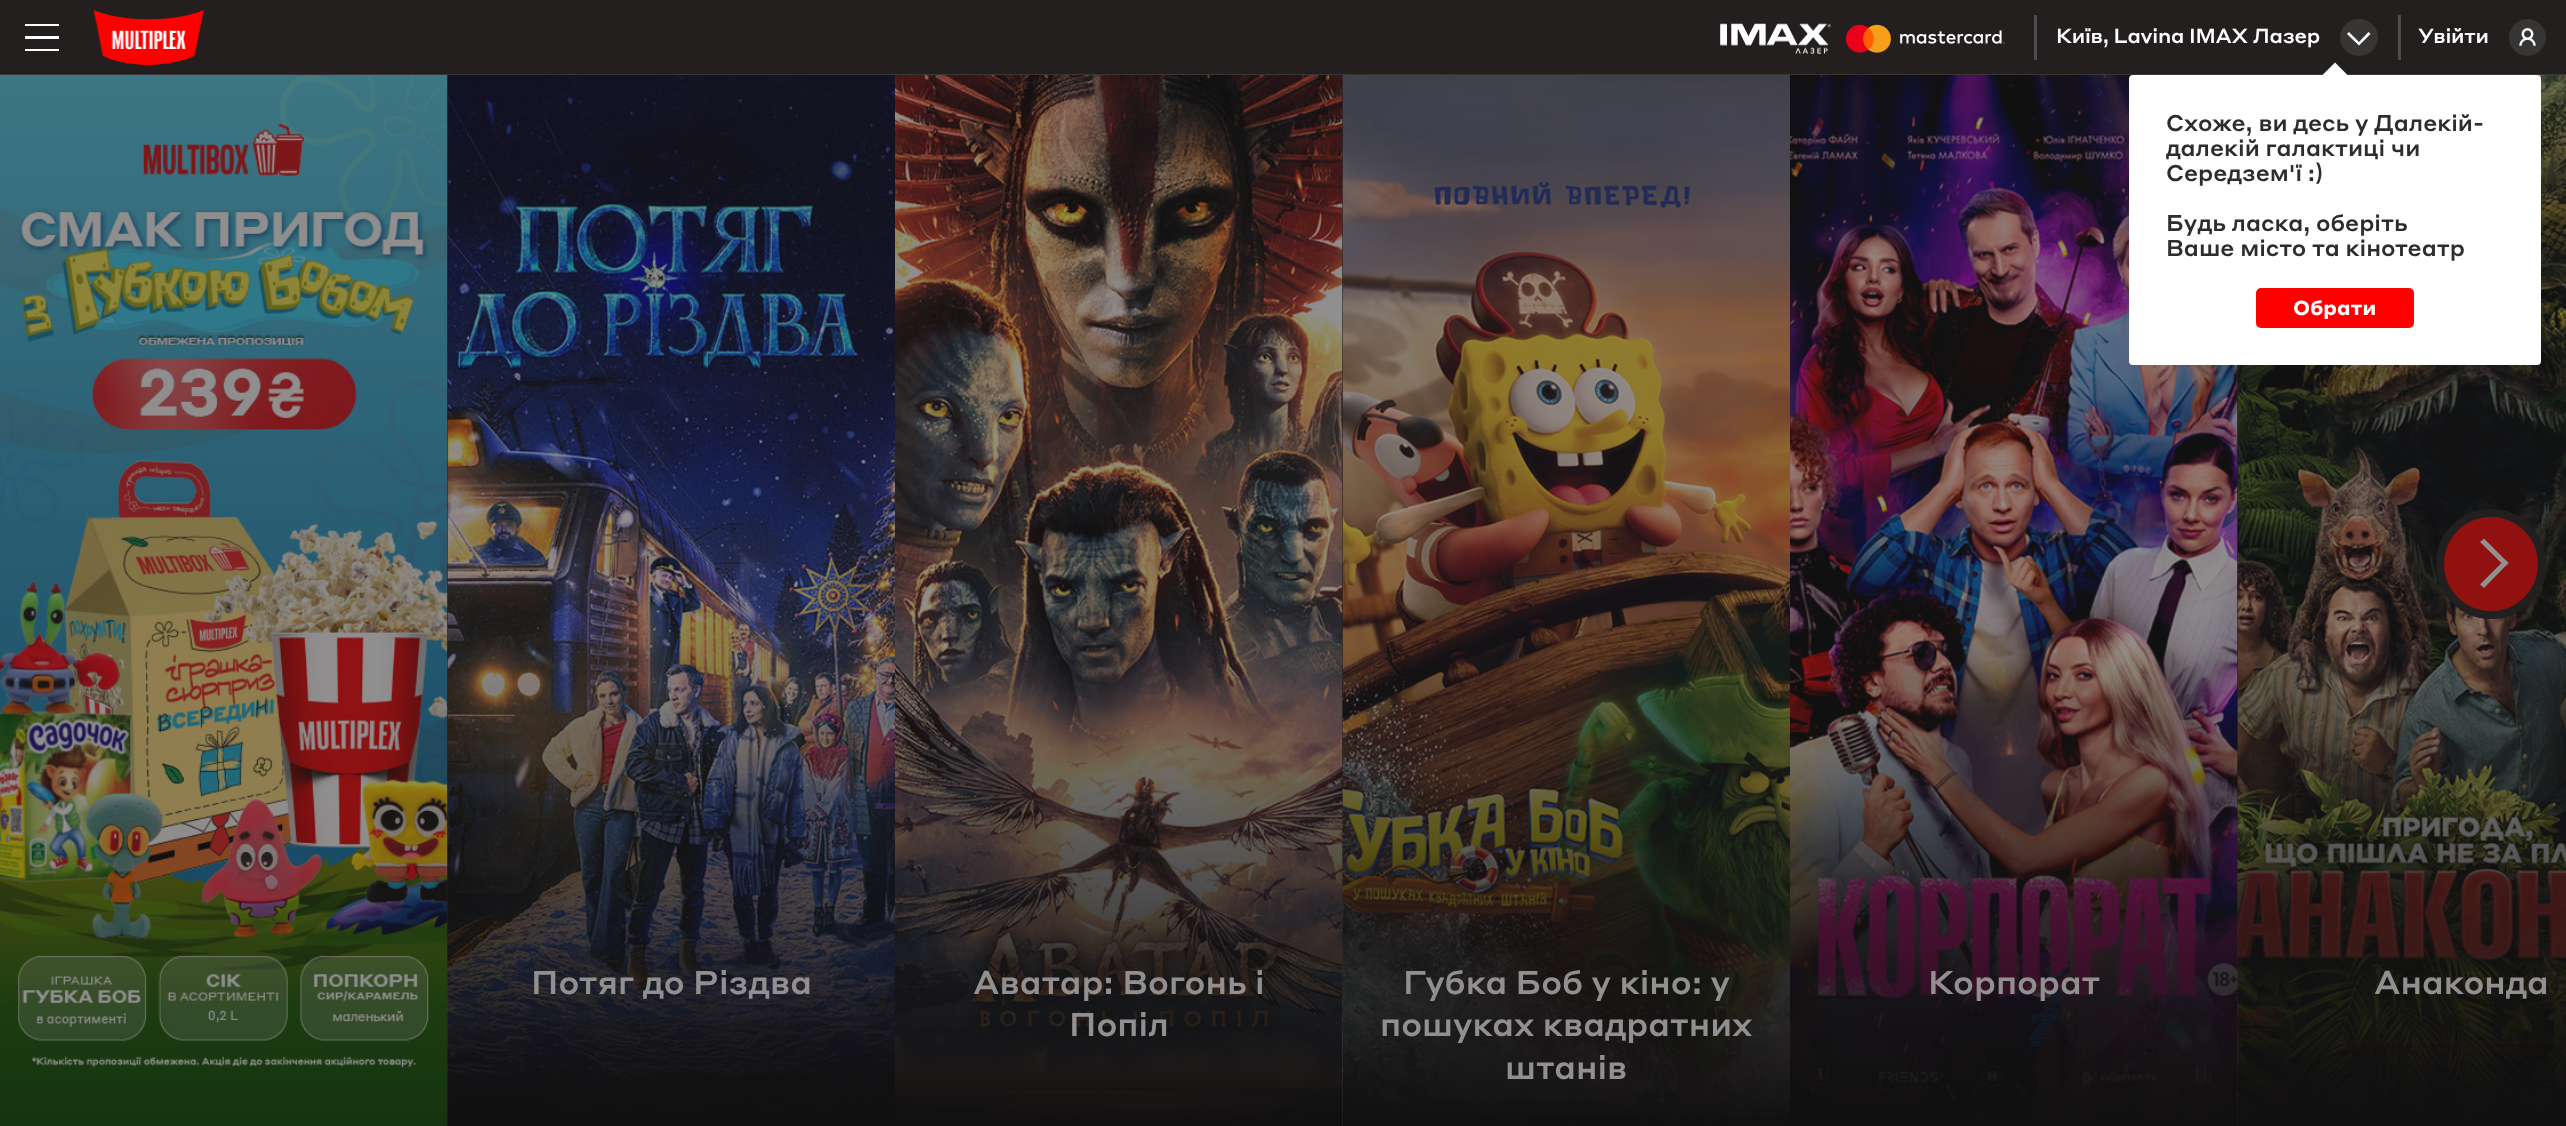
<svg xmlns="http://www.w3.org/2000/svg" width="2566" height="1126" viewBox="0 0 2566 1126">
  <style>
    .t1 { font: 500 20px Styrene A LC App; letter-spacing: -0.25px; fill: #fff; }
    .t2 { font: 500 22.5px Styrene A LC App; fill: #2d2d2d; }
    .t3 { font: bold 20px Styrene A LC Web; fill: #fff; }
    .t4 { font: 500 32.5px Styrene A LC App; fill: #918f8f; }
  </style>
  <rect width="100%" height="100%" fill="#231f1f"/>
  <rect x="0" y="74" width="2566" height="1" fill="#383535"/>
  <rect x="25" y="24" width="34" height="2" fill="#fff"/>
  <rect x="25" y="36" width="34" height="3" fill="#fff"/>
  <rect x="25" y="49" width="34" height="2" fill="#fff"/>
  <image x="93" y="10" width="111" height="55" href="images/1.png"/>
  <image x="1720" y="23" width="111" height="31" href="images/2.png"/>
  <image x="1845" y="24" width="160" height="29" href="images/3.png"/>
  <rect x="2034" y="15" width="3" height="45" fill="#4e4c4c"/>
  <text x="2056" y="43" class="t1">Київ, Lavina IMAX Лазер</text>
  <rect x="2340" y="19" width="38" height="37" rx="18.5" fill="#383535"/>
  <path d="M2359 42L2349 32L2347 34L2359 45.5L2370.5 34L2368.5 32Z" fill="#fff"/>
  <rect x="2398" y="15" width="3" height="45" fill="#4e4c4c"/>
  <text x="2418" y="43" class="t1">Увійти</text>
  <circle cx="2527.5" cy="37.5" r="18.5" fill="#383535"/>
  <image x="2519" y="28" width="17" height="18" href="images/4.png"/>
  <image x="1790" y="75" width="448" height="1051" href="images/9.png"/>
  <image x="2237" y="75" width="329" height="1051" href="images/10.png"/>
  <rect x="2129" y="75" width="412" height="290" rx="4" fill="#fff"/>
  <path d="M2347.5 75H2322.5L2335 62.5Z" fill="#fff"/>
  <text x="2166" y="131" class="t2">Схоже, ви десь у Далекій-</text>
  <text x="2166" y="156" class="t2">далекій галактиці чи</text>
  <text x="2166" y="181" class="t2">Середзем'ї :)</text>
  <text x="2166" y="231" class="t2">Будь ласка, оберіть</text>
  <text x="2166" y="256" class="t2">Ваше місто та кінотеатр</text>
  <rect x="2256" y="288" width="158" height="40" rx="5" fill="#f00"/>
  <text x="2293" y="315" class="t3">Обрати</text>
  <circle cx="2491" cy="564" r="51" fill="#911010" stroke="#221f1f" stroke-width="8"/>
  <path d="M2484 538.5L2508.5 563L2505 566.5L2480 542Z" fill="#918f8f"/>
  <path d="M2505 559.5L2508.5 563L2484 588L2480 584.5Z" fill="#918f8f"/>
  <image x="0" y="75" width="448" height="1051" href="images/5.png"/>
  <image x="447" y="75" width="448" height="1051" href="images/6.png"/>
  <text x="531" y="994" class="t4">Потяг до Різдва</text>
  <image x="895" y="75" width="448" height="1051" href="images/7.png"/>
  <text x="973" y="994" class="t4">Аватар: Вогонь і</text>
  <text x="1069" y="1036" class="t4">Попіл</text>
  <image x="1342" y="75" width="448" height="1051" href="images/8.png"/>
  <text x="1403" y="994" class="t4">Губка Боб у кіно: у</text>
  <text x="1380" y="1036" class="t4">пошуках квадратних</text>
  <text x="1505" y="1079" class="t4">штанів</text>
  <text x="1928" y="994" class="t4">Корпорат</text>
  <text x="2374" y="994" class="t4">Анаконда</text>
</svg>
